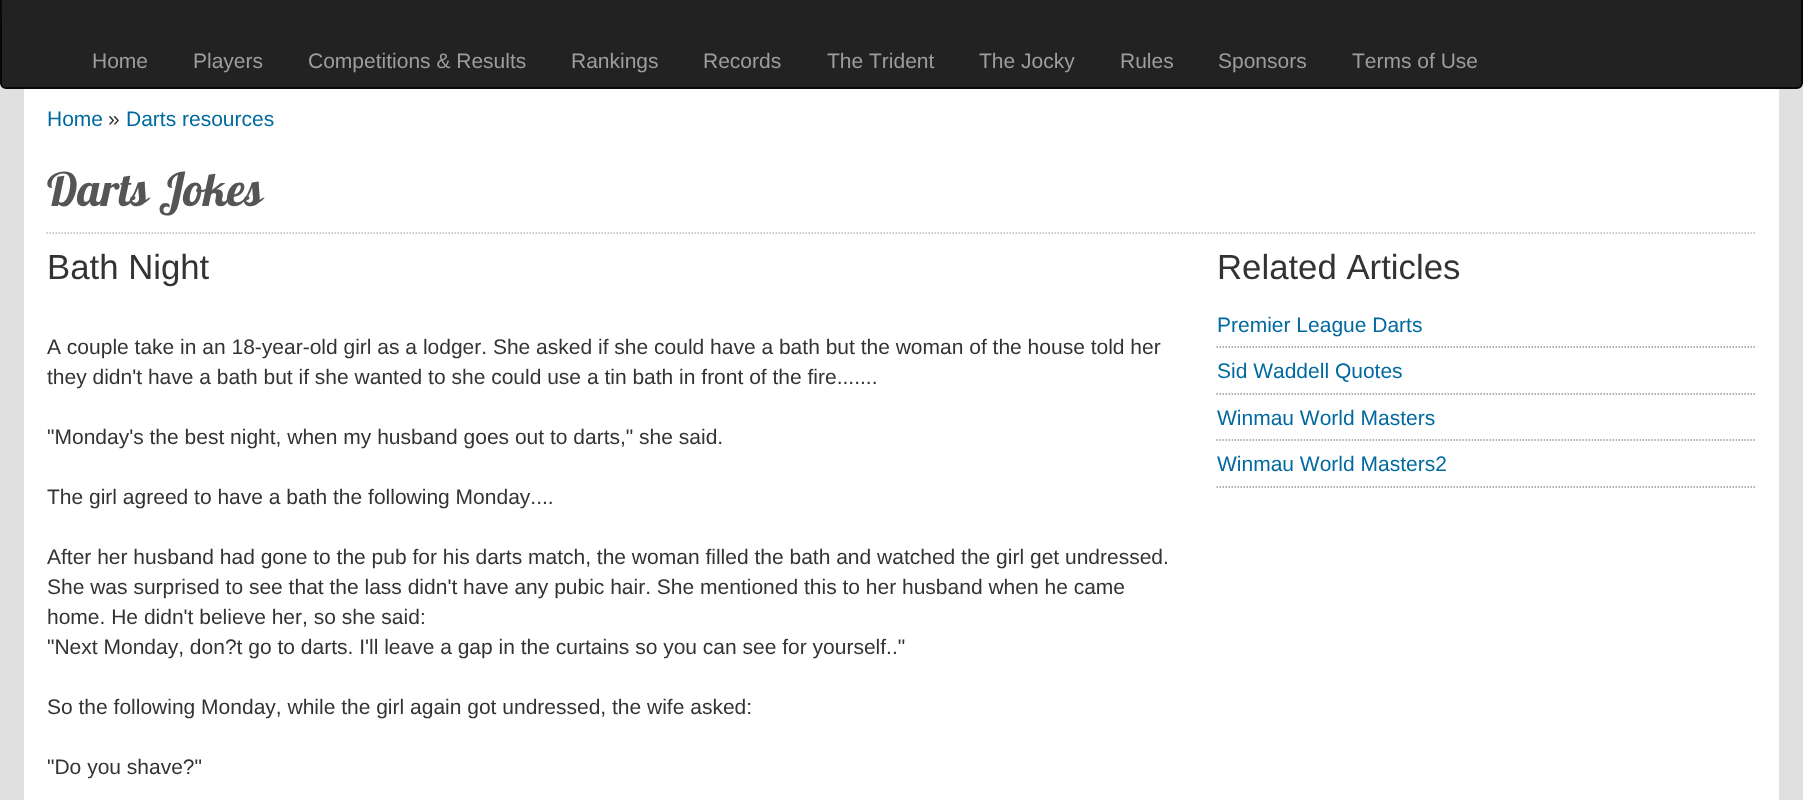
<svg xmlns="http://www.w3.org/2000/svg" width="1803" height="800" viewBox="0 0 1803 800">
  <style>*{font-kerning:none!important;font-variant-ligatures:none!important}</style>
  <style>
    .t1 { font: 21px Liberation Sans; fill: #9d9d9d; }
    .t2 { font: 21px Liberation Sans; fill: #00699f; }
    .t3 { font: 21px Liberation Sans; fill: #333; }
    .t4 { font: 46px Lobster; fill: #555; }
    .t5 { font: 34.75px Liberation Sans; fill: #333; }
  </style>
  <rect width="100%" height="100%" fill="#e0e0e0"/>
  <rect x="1" y="-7" width="1801" height="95" rx="5" fill="#222" stroke="#080808" stroke-width="2"/>
  <text x="92" y="68" class="t1">Home</text>
  <text x="193" y="68" class="t1">Players</text>
  <text x="308" y="68" class="t1">Competitions &amp; Results</text>
  <text x="571" y="68" class="t1">Rankings</text>
  <text x="703" y="68" class="t1">Records</text>
  <text x="827" y="68" class="t1">The Trident</text>
  <text x="979" y="68" class="t1">The Jocky</text>
  <text x="1120" y="68" class="t1">Rules</text>
  <text x="1218" y="68" class="t1">Sponsors</text>
  <text x="1352" y="68" class="t1">Terms of Use</text>
  <rect x="24" y="89" width="1755" height="711" fill="#fff"/>
  <text x="47" y="126" class="t2">Home</text>
  <text x="108" y="126" class="t3">»</text>
  <text x="126" y="126" class="t2">Darts resources</text>
  <path d="M46.5 233H1756.5" fill="none" stroke="#bbb" stroke-width="1.5" stroke-dasharray="1.5 1.5"/>
  <text x="47" y="206" class="t4">Darts Jokes</text>
  <text x="47" y="279" class="t5">Bath Night</text>
  <text x="47" y="354" class="t3">A couple take in an 18-year-old girl as a lodger. She asked if she could have a bath but the woman of the house told her</text>
  <text x="47" y="384" class="t3">they didn't have a bath but if she wanted to she could use a tin bath in front of the fire.......</text>
  <text x="47" y="444" class="t3">"Monday's the best night, when my husband goes out to darts," she said.</text>
  <text x="47" y="504" class="t3">The girl agreed to have a bath the following Monday....</text>
  <text x="47" y="564" class="t3">After her husband had gone to the pub for his darts match, the woman filled the bath and watched the girl get undressed.</text>
  <text x="47" y="594" class="t3">She was surprised to see that the lass didn't have any pubic hair. She mentioned this to her husband when he came</text>
  <text x="47" y="624" class="t3">home. He didn't believe her, so she said:</text>
  <text x="47" y="654" class="t3">"Next Monday, don?t go to darts. I'll leave a gap in the curtains so you can see for yourself.."</text>
  <text x="47" y="714" class="t3">So the following Monday, while the girl again got undressed, the wife asked:</text>
  <text x="47" y="774" class="t3">"Do you shave?"</text>
  <text x="1217" y="279" class="t5">Related Articles</text>
  <path d="M1216.5 347H1756.5" fill="none" stroke="#999" stroke-width="1.5" stroke-dasharray="1.5 1.5"/>
  <text x="1217" y="332" class="t2">Premier League Darts</text>
  <path d="M1216.5 394H1756.5" fill="none" stroke="#999" stroke-width="1.5" stroke-dasharray="1.5 1.5"/>
  <text x="1217" y="378" class="t2">Sid Waddell Quotes</text>
  <path d="M1216.5 440H1756.5" fill="none" stroke="#999" stroke-width="1.5" stroke-dasharray="1.5 1.5"/>
  <text x="1217" y="425" class="t2">Winmau World Masters</text>
  <path d="M1216.5 487H1756.5" fill="none" stroke="#999" stroke-width="1.5" stroke-dasharray="1.5 1.5"/>
  <text x="1217" y="471" class="t2">Winmau World Masters2</text>
</svg>
